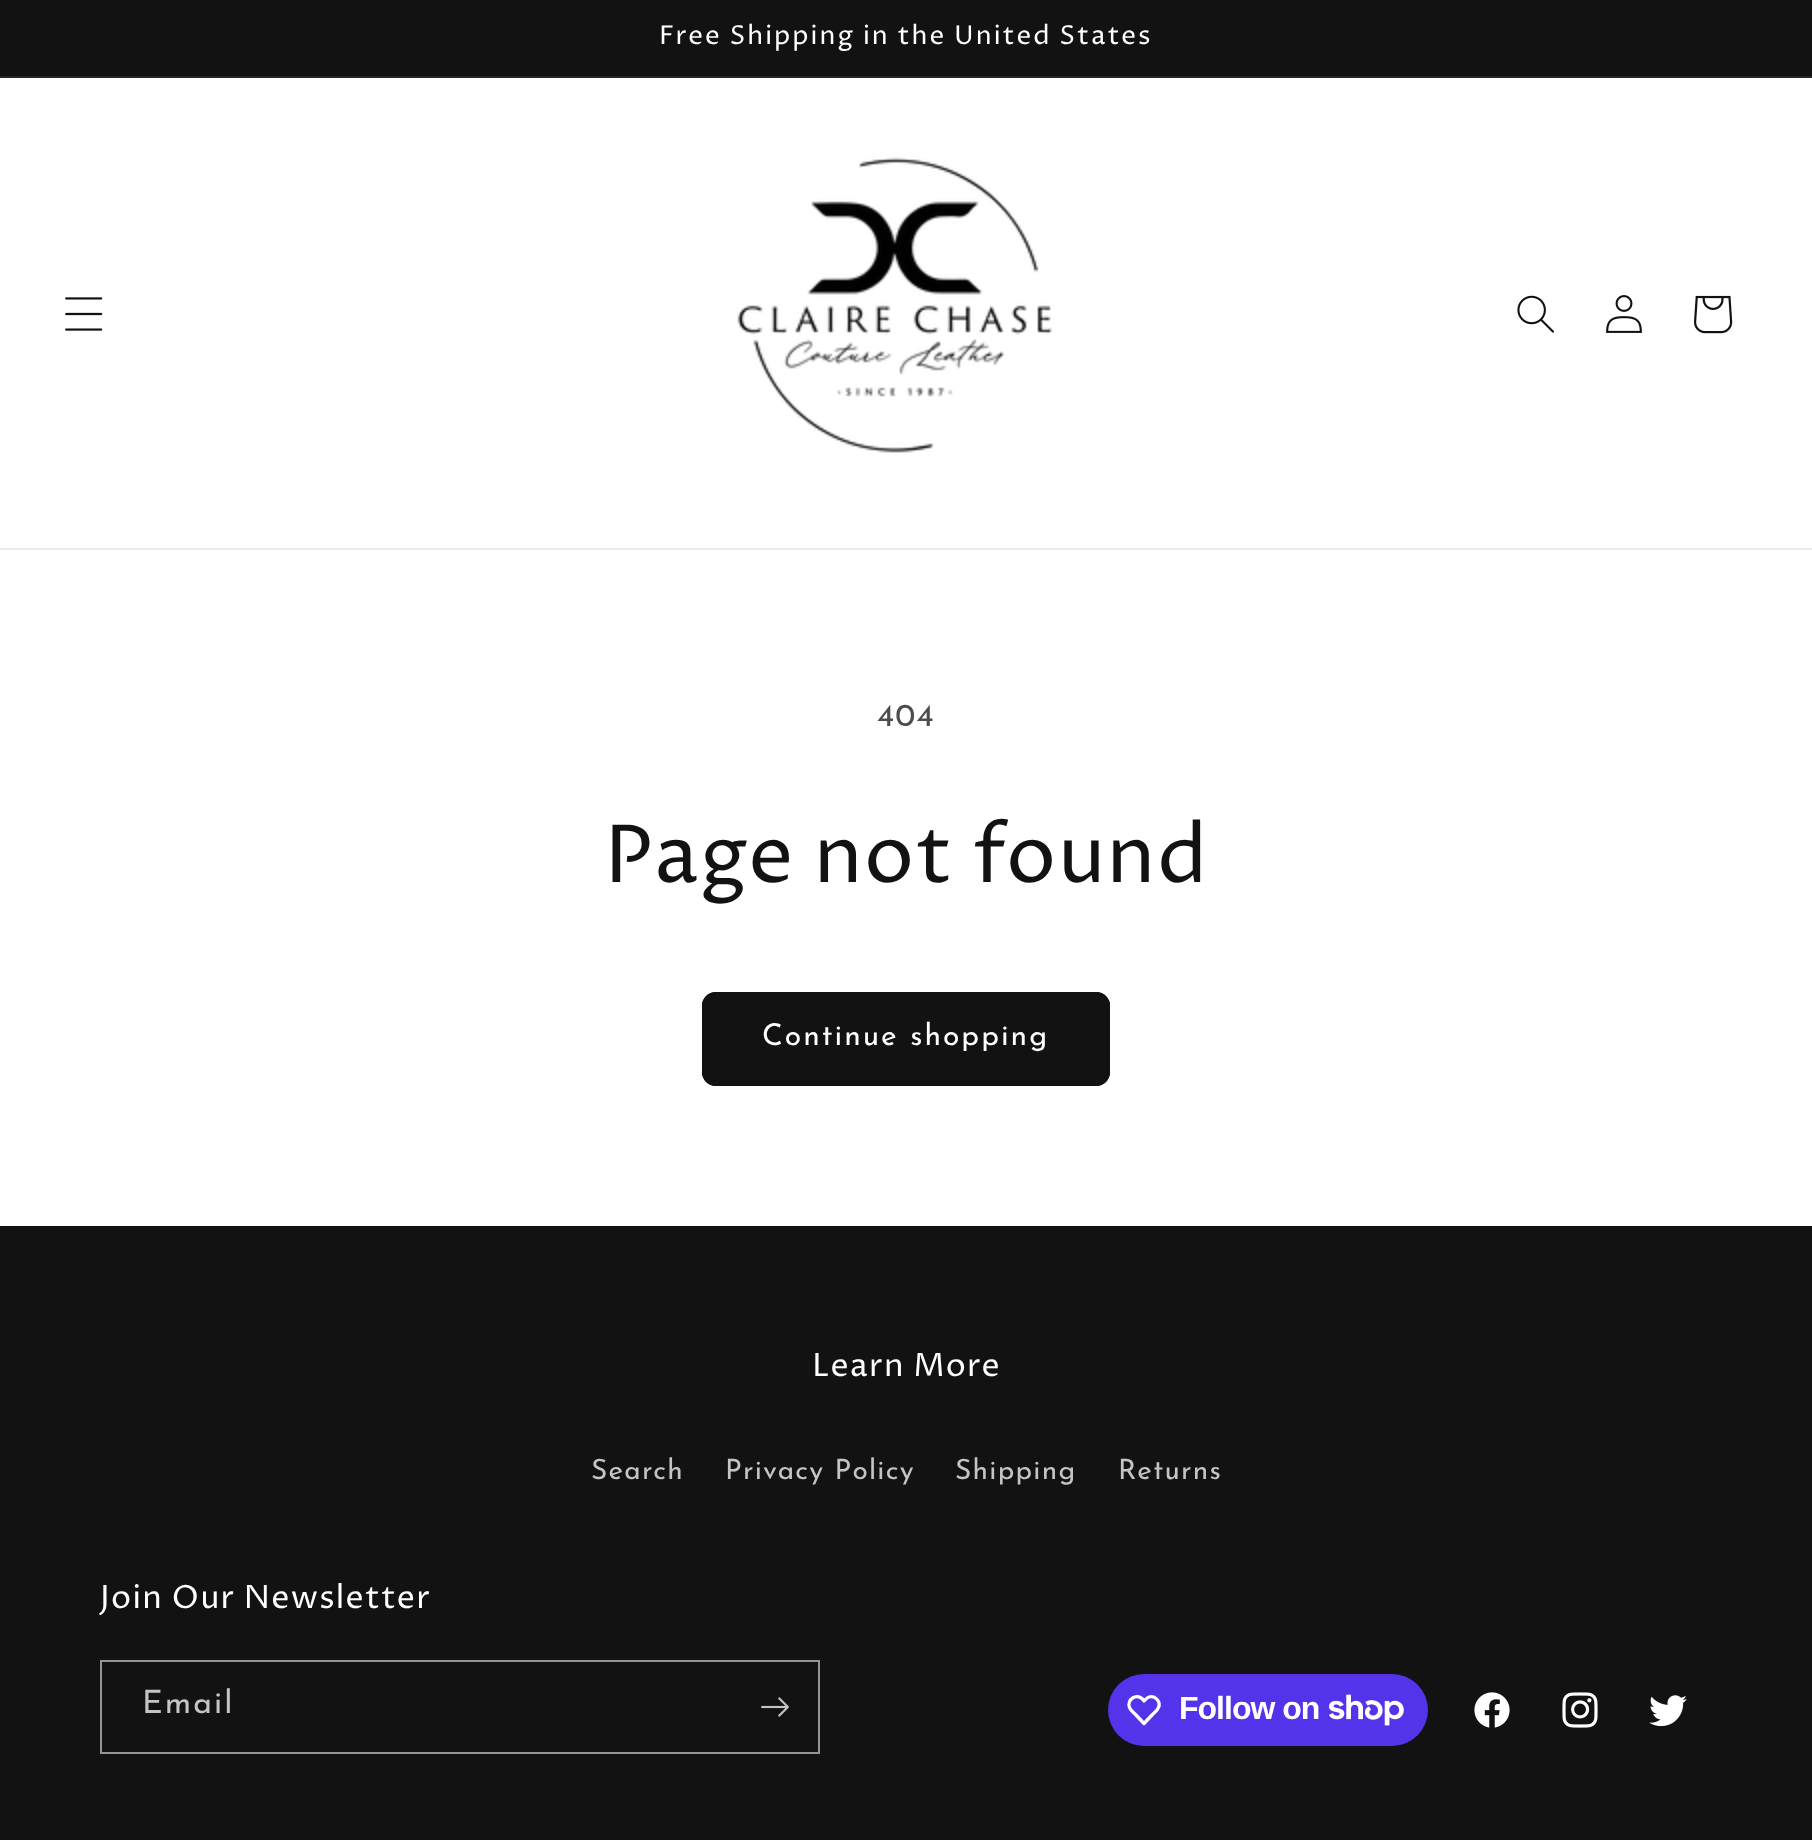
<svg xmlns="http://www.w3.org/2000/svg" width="1812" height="1840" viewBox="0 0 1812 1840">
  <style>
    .t1 { font: 26px Proza Libre; letter-spacing: 2px; fill: #fff; }
    .t2 { font: 32px Josefin Sans; letter-spacing: 1.25px; fill: #4d4d4d; }
    .t3 { font: 80px Proza Libre; letter-spacing: 1.25px; fill: #121212; }
    .t4 { font: 30px Josefin Sans; letter-spacing: 2px; fill: #fff; }
    .t5 { font: 32px Proza Libre; letter-spacing: 1.25px; fill: #fff; }
    .t6 { font: 28px Josefin Sans; letter-spacing: 1.25px; fill: #c4c4c4; }
    .t7 { font: 32px Josefin Sans; letter-spacing: 2px; fill: #c4c4c4; }
    .t8 { font: bold 32px Liberation Sans; letter-spacing: -1px; fill: #fff; }
  </style>
  <rect width="100%" height="100%" fill="#fff"/>
  <rect x="0" y="0" width="1812" height="76" fill="#121212"/>
  <rect x="0" y="76" width="1812" height="2" fill="#252525"/>
  <text x="659" y="44" class="t1">Free Shipping in the United States</text>
  <rect x="0" y="548" width="1812" height="2" fill="#ececec"/>
  <image x="65" y="297" width="38" height="34" href="images/1.png"/>
  <image x="737" y="157" width="316" height="296" href="images/2.png"/>
  <image x="1517" y="295" width="37" height="38" href="images/3.png"/>
  <image x="1606" y="295" width="36" height="38" href="images/4.png"/>
  <image x="1694" y="295" width="39" height="39" href="images/5.png"/>
  <text x="877" y="726" class="t2">404</text>
  <text x="604" y="882" class="t3">Page not found</text>
  <rect x="702" y="992" width="408" height="94" rx="14" fill="#121212"/>
  <rect x="703" y="993" width="406" height="92" rx="13" fill="none" stroke="#121212" stroke-width="2"/>
  <text x="762" y="1045" class="t4">Continue shopping</text>
  <rect x="0" y="1226" width="1812" height="614" fill="#121212"/>
  <text x="812" y="1376" class="t5">Learn More</text>
  <text x="591" y="1479" class="t6">Search</text>
  <text x="725" y="1479" class="t6">Privacy Policy</text>
  <text x="955" y="1479" class="t6">Shipping</text>
  <text x="1118" y="1479" class="t6">Returns</text>
  <text x="100" y="1608" class="t5">Join Our Newsletter</text>
  <rect x="101" y="1661" width="718" height="92" fill="none" stroke="#949494" stroke-width="2"/>
  <text x="142" y="1713" class="t7">Email</text>
  <image x="761" y="1697" width="28" height="20" href="images/6.png"/>
  <rect x="1108" y="1674" width="320" height="72" rx="36" fill="#5433eb"/>
  <path d="M1142.5 1699L1144 1701C1145.5 1699.5 1147 1697.5 1149 1697C1155 1695 1161 1701.5 1158.5 1707.5C1157.5 1710.5 1154.5 1712.5 1152.5 1714.5L1144 1723.5L1135.5 1714.5C1133.5 1712.5 1130.5 1710.5 1129.5 1707.5C1126.5 1699.5 1136.5 1693 1142.5 1699Z" fill="none" stroke="#fff" stroke-width="3.3" stroke-linejoin="round"/>
  <text x="1179" y="1719" class="t8">Follow on</text>
  <image x="1329" y="1694" width="75" height="32" href="images/7.png"/>
  <image x="1474" y="1692" width="36" height="36" href="images/8.png"/>
  <image x="1562" y="1692" width="36" height="36" href="images/9.png"/>
  <image x="1649" y="1695" width="38" height="32" href="images/10.png"/>
</svg>
